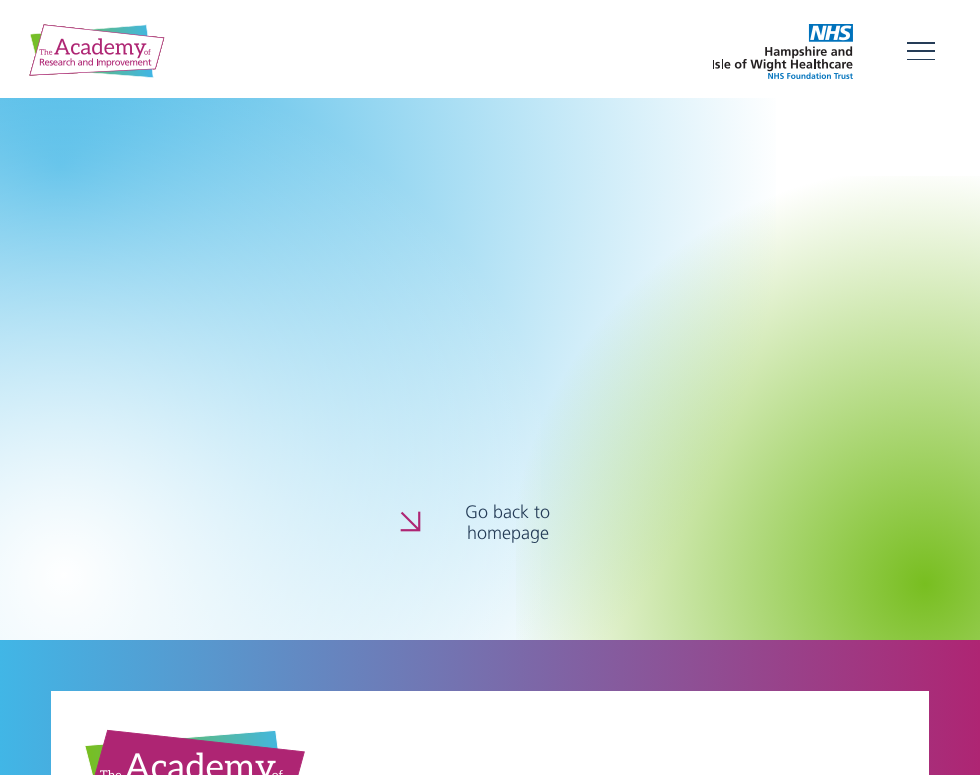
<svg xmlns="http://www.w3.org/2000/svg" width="980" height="775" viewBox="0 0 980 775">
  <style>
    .t1 { font: 300 18px Frutiger; fill: #253c57; }
  </style>
  <defs>
    <radialGradient id="g1" gradientUnits="userSpaceOnUse" cx="60" cy="166" r="1034"><stop offset="0" stop-color="#41b6e6"/><stop offset="0.7" stop-color="#fff"/></radialGradient>
    <radialGradient id="g2" gradientUnits="userSpaceOnUse" cx="64" cy="575" r="1033"><stop offset="0" stop-color="#fff" stop-opacity="0.99"/><stop offset="0.5" stop-color="#fff" stop-opacity="0"/></radialGradient>
    <radialGradient id="g3" gradientUnits="userSpaceOnUse" cx="925" cy="584" r="1044"><stop offset="0" stop-color="#78be20"/><stop offset="0.4" stop-color="#78be20" stop-opacity="0"/></radialGradient>
    <linearGradient id="g4" gradientUnits="userSpaceOnUse" x1="0" y1="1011" x2="980" y2="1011"><stop offset="0" stop-color="#41b6e6"/><stop offset="1" stop-color="#ae2573"/></linearGradient>
  </defs>
  <rect width="100%" height="100%" fill="#fff"/>
  <image x="29" y="24" width="136" height="54" href="images/1.png"/>
  <image x="713" y="24" width="140" height="55" href="images/2.png"/>
  <rect x="907" y="42" width="28" height="2" fill="#253c57"/>
  <rect x="907" y="50" width="28" height="2" fill="#253c57"/>
  <rect x="907" y="59" width="28" height="1" fill="#253c57"/>
  <rect x="0" y="98" width="776" height="542" fill="url(#g1)"/>
  <rect x="0" y="98" width="541" height="542" fill="url(#g2)"/>
  <rect x="516" y="176" width="464" height="464" fill="url(#g3)"/>
  <image x="400" y="511" width="21" height="21" href="images/3.png"/>
  <text x="465" y="518" class="t1">Go back to</text>
  <text x="467" y="539" class="t1">homepage</text>
  <rect x="0" y="640" width="980" height="135" fill="url(#g4)"/>
  <rect x="51" y="691" width="878" height="84" fill="#fff"/>
  <image x="84" y="729" width="221" height="46" href="images/4.png"/>
</svg>
